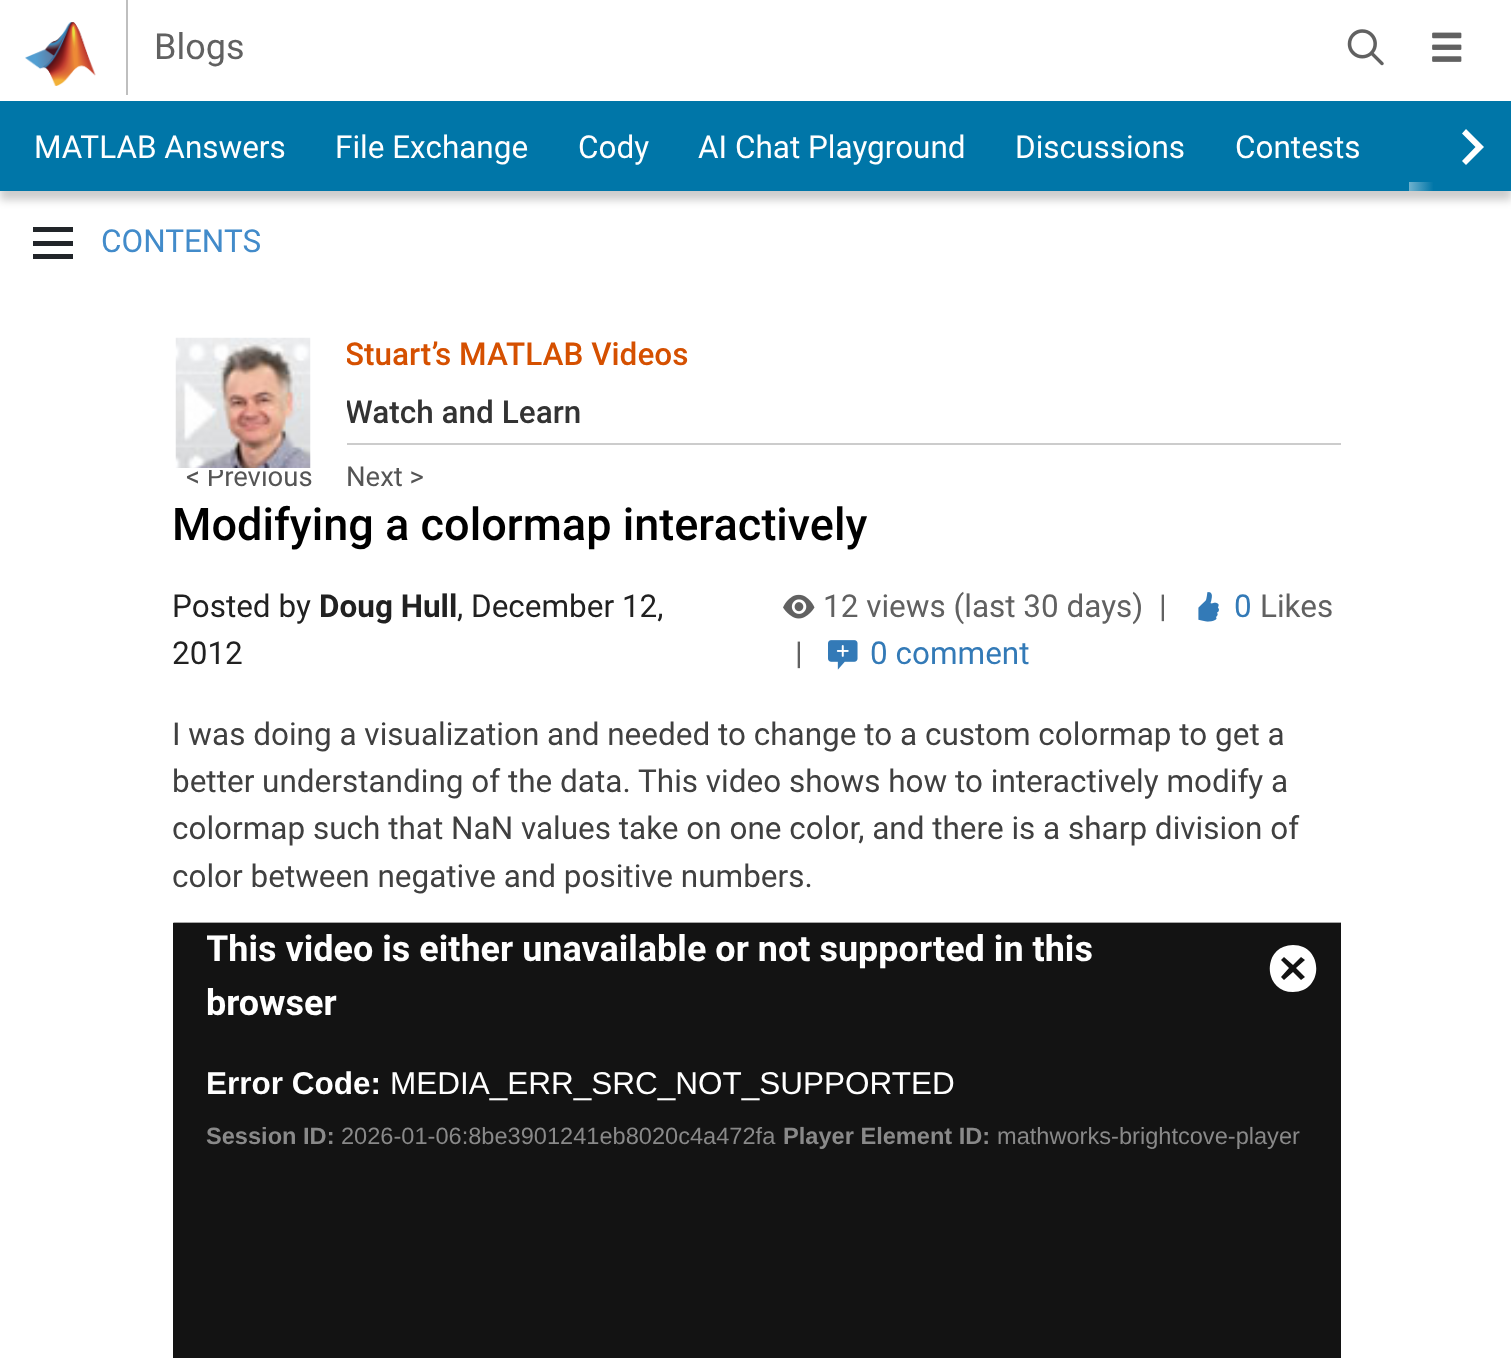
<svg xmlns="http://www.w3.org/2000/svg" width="1511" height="1358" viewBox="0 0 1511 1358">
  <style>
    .t1 { font: 36px Roboto; fill: #616161; }
    .t2 { font: 31.5px Roboto; fill: #fff; }
    .t3 { font: 31.5px Roboto; fill: #428bca; }
    .t4 { font: 27.5px Roboto; fill: #555; }
    .t5 { font: 500 31.5px Roboto; fill: #d55000; }
    .t6 { font: 500 31.5px Roboto; fill: #333; }
    .t7 { font: 500 45px Roboto; fill: #000; }
    .t8 { font: 31.5px Roboto; fill: #212121; }
    .t9 { font: bold 31.5px Roboto; fill: #212121; }
    .t10 { font: 31.5px Roboto; fill: #616161; }
    .t11 { font: 31.5px Roboto; fill: #337ab7; }
    .t12 { font: 31.5px Roboto; fill: #404040; }
    .t13 { font: bold 36px Roboto; fill: #fff; }
    .t14 { font: bold 31.5px Liberation Sans; fill: #fff; }
    .t15 { font: 31.5px Liberation Sans; fill: #fff; }
    .t16 { font: bold 23.6px Liberation Sans; fill: #898989; }
    .t17 { font: 23.6px Liberation Sans; fill: #898989; }
  </style>
  <defs>
    <linearGradient id="g1" gradientUnits="userSpaceOnUse" x1="1377" y1="146" x2="1490" y2="146"><stop offset="0" stop-color="#0076a8" stop-opacity="0"/><stop offset="0.5" stop-color="#0076a8"/><stop offset="1" stop-color="#0076a8"/></linearGradient>
    <clipPath id="clip1"><rect x="347" y="335" width="994" height="111"/></clipPath>
    <clipPath id="clip2"><rect x="207" y="923" width="1100" height="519"/></clipPath>
  </defs>
  <rect width="100%" height="100%" fill="#fff"/>
  <rect x="126" y="0" width="2" height="95" fill="#bfbfbf"/>
  <image x="25" y="22" width="71" height="64" href="images/1.png"/>
  <text x="154" y="59" class="t1">Blogs</text>
  <image x="1347" y="29" width="37" height="37" href="images/2.png"/>
  <image x="1432" y="32" width="30" height="30" href="images/3.png"/>
  <rect x="0" y="110" width="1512" height="90" fill="#00000033" filter="blur(4.5px)"/>
  <rect x="0" y="101" width="1433" height="90" fill="#0076a8"/>
  <text x="34" y="158" class="t2">MATLAB Answers</text>
  <text x="335" y="158" class="t2">File Exchange</text>
  <text x="578" y="158" class="t2">Cody</text>
  <text x="698" y="158" class="t2">AI Chat Playground</text>
  <text x="1015" y="158" class="t2">Discussions</text>
  <text x="1235" y="158" class="t2">Contests</text>
  <rect x="1409" y="182" width="24" height="9" fill="#fff"/>
  <rect x="1409" y="101" width="76" height="90" fill="url(#g1)"/>
  <path d="M1466 129L1462 133.5L1475.5 147L1462 161L1466 165L1484 147Z" fill="#fff"/>
  <rect x="1485" y="101" width="26" height="90" fill="#0076a8"/>
  <path d="M73 259H33V254H73ZM73 246H33V241H73ZM73 232H33V227H73Z" fill="#212529"/>
  <text x="101" y="252" class="t3">CONTENTS</text>
  <text x="186" y="486" class="t4">&lt; Previous</text>
  <rect x="174" y="336" width="138" height="133" fill="none" stroke="#fff" stroke-width="2"/>
  <image x="175" y="337" width="136" height="131" href="images/4.png"/>
  <rect x="347" y="443" width="994" height="2" fill="#ccc"/>
  <g clip-path="url(#clip1)">
    <text x="345" y="365" class="t5">Stuart’s MATLAB Videos</text>
    <text x="345" y="423" class="t6">Watch and Learn</text>
  </g>
  <text x="346" y="486" class="t4">Next &gt;</text>
  <text x="172" y="540" class="t7">Modifying a colormap interactively</text>
  <text x="172" y="617" class="t8">Posted by</text>
  <text x="319" y="617" class="t9">Doug Hull</text>
  <text x="457" y="617" class="t8">, December 12,</text>
  <text x="172" y="664" class="t8">2012</text>
  <image x="783" y="594" width="32" height="25" href="images/5.png"/>
  <text x="823" y="617" class="t10" xml:space="preserve">12 views (last 30 days)  |</text>
  <image x="1198" y="592" width="21" height="30" href="images/6.png"/>
  <text x="1234" y="617" class="t11">0</text>
  <text x="1260" y="617" class="t10">Likes</text>
  <text x="795" y="664" class="t10">|</text>
  <image x="828" y="640" width="30" height="30" href="images/7.png"/>
  <text x="870" y="664" class="t11">0 comment</text>
  <text x="172" y="745" class="t12">I was doing a visualization and needed to change to a custom colormap to get a</text>
  <text x="172" y="792" class="t12">better understanding of the data.</text>
  <text x="638" y="792" class="t12">This video shows how to interactively modify a</text>
  <text x="172" y="839" class="t12">colormap such that NaN values take on one color, and there is a sharp division of</text>
  <text x="172" y="887" class="t12">color between negative and positive numbers.</text>
  <image x="173" y="922" width="1168" height="1" href="images/8.png"/>
  <image x="173" y="922" width="1168" height="1" href="images/9.png"/>
  <rect x="173" y="923" width="1168" height="435" fill="#131313"/>
  <g clip-path="url(#clip2)">
    <text x="206" y="961" class="t13">This video is either unavailable or not supported in this</text>
  </g>
  <text x="206" y="1015" class="t13">browser</text>
  <text x="206" y="1094" class="t14">Error Code:</text>
  <text x="390" y="1094" class="t15">MEDIA_ERR_SRC_NOT_SUPPORTED</text>
  <text x="206" y="1144" class="t16">Session ID:</text>
  <text x="341" y="1144" class="t17">2026-01-06:8be3901241eb8020c4a472fa</text>
  <text x="783" y="1144" class="t16">Player Element ID:</text>
  <text x="997" y="1144" class="t17">mathworks-brightcove-player</text>
  <path d="M1293 945C1262 945 1262 992 1293 992C1324 992 1324 945 1293 945ZM1305 977L1301 980L1293 972L1284 980L1281 977L1289 968L1281 960L1284 957L1293 965L1301 957L1305 960L1296 968Z" fill="#fff"/>
</svg>
